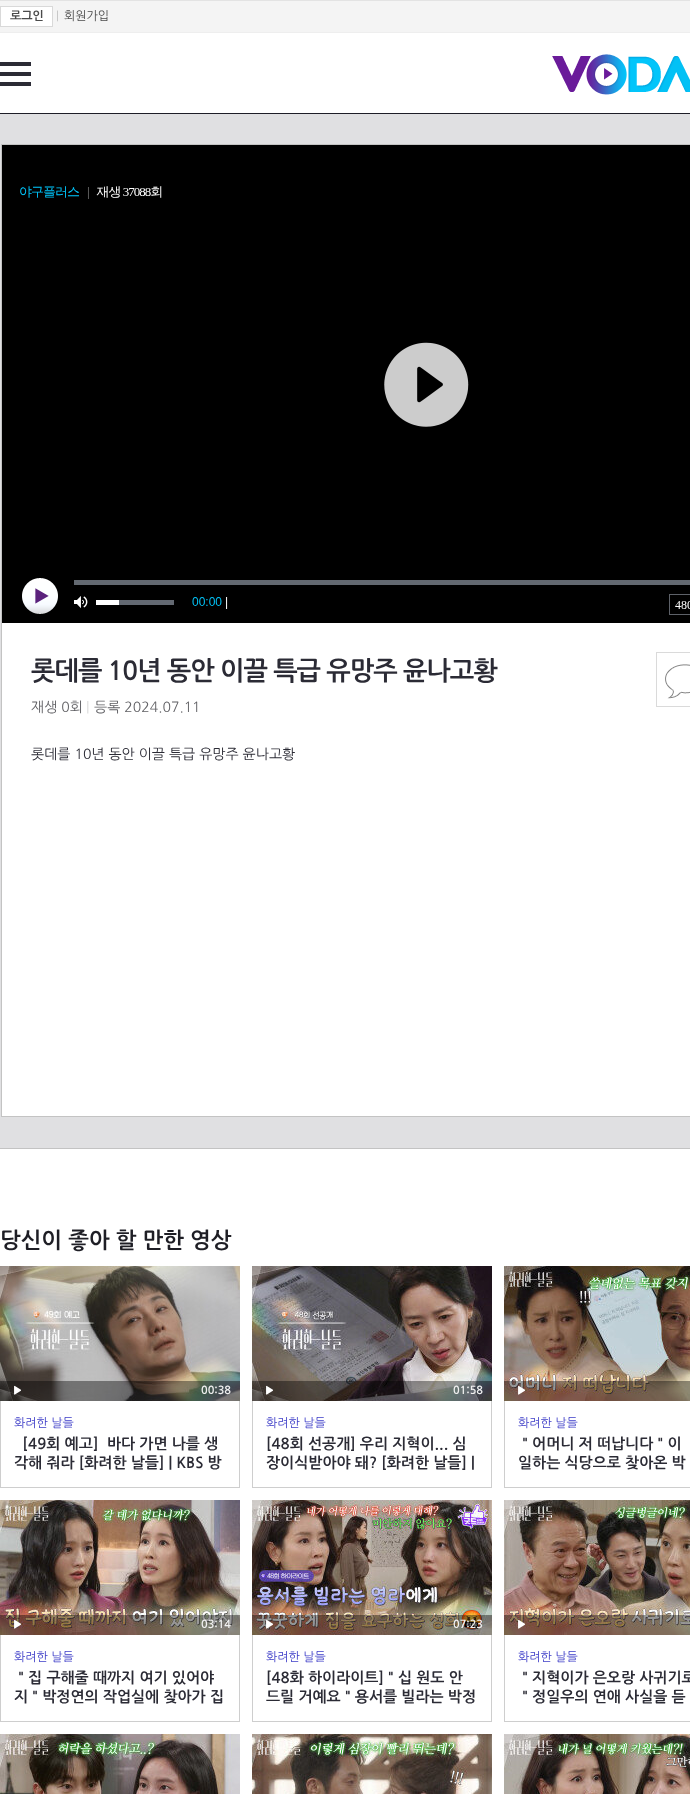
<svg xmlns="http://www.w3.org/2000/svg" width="690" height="1794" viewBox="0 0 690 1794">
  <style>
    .t1 { font: bold 12px NanumGothic; fill: #4b4b4b; }
    .t2 { font: 12px NanumGothic; fill: #c3c3c3; }
    .t3 { font: 12px NanumGothic; fill: #4b4b4b; }
    .t4 { font: bold 26px NanumGothic; letter-spacing: -1px; fill: #2b2b35; }
    .t5 { font: 14px NanumGothic; fill: #616165; }
    .t6 { font: 14px NanumGothic; fill: #dbdada; }
    .t7 { font: 14px NanumGothic; fill: #2b2b35; }
    .t8 { font: bold 22px NanumGothic; fill: #1e1e25; }
    .t9 { font: bold 11px NanumGothic; fill: #f0f0f0; }
    .t10 { font: 12px NanumGothic; fill: #3c3cc7; }
    .t11 { font: bold 15px NanumGothic; fill: #2b2b35; }
  </style>
  <rect width="100%" height="100%" fill="#fff"/>
  <rect x="0" y="1" width="690" height="31" fill="#f4f4f4"/>
  <rect x="0" y="0" width="690" height="1" fill="#e3e3e3"/>
  <rect x="0" y="32" width="690" height="1" fill="#eee"/>
  <rect x="0.5" y="6.5" width="52" height="20" fill="#fff" stroke="#d9d9d9"/>
  <text x="10" y="20" class="t1">로그인</text>
  <text x="56" y="20" class="t2">|</text>
  <text x="64" y="20" class="t3">회원가입</text>
  <image x="0" y="62" width="31" height="24" href="images/1.png"/>
  <image x="552" y="54" width="138" height="41" href="images/2.png"/>
  <rect x="0" y="114" width="690" height="1034" fill="#e0e0e2"/>
  <rect x="0" y="113" width="690" height="1" fill="#1d1d27"/>
  <rect x="0" y="1148" width="690" height="1" fill="#c3c3c3"/>
  <rect x="2" y="623" width="688" height="493" fill="#fff"/>
  <rect x="1.5" y="144.5" width="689" height="972" fill="none" stroke="#c3c3c3"/>
  <image x="2" y="145" width="688" height="478" href="images/3.png"/>
  <text x="31" y="680" class="t4">롯데를 10년 동안 이끌 특급 유망주 윤나고황</text>
  <image x="656" y="652" width="34" height="55" href="images/4.png"/>
  <text x="31" y="712" class="t5">재생 0회</text>
  <text x="86" y="712" class="t6">|</text>
  <text x="94" y="712" class="t5">등록 2024.07.11</text>
  <text x="31" y="759" class="t7">롯데를 10년 동안 이끌 특급 유망주 윤나고황</text>
  <text x="0" y="1248" class="t8">당신이 좋아 할 만한 영상</text>
  <image x="0" y="1266" width="240" height="135" href="images/5.png"/>
  <rect x="0" y="1381" width="240" height="20" fill="#00000066"/>
  <image x="14" y="1385" width="7" height="10" href="images/6.png"/>
  <text x="201" y="1394" class="t9">00:38</text>
  <rect x="239" y="1401" width="1" height="87" fill="#cecece"/>
  <rect x="0" y="1487" width="240" height="1" fill="#cecece"/>
  <rect x="0" y="1401" width="1" height="87" fill="#cecece"/>
  <text x="14" y="1427" class="t10">화려한 날들</text>
  <text x="14" y="1449" class="t11">［49회 예고］바다 가면 나를 생</text>
  <text x="14" y="1468" class="t11">각해 줘라 [화려한 날들] | KBS 방</text>
  <image x="252" y="1266" width="240" height="135" href="images/7.png"/>
  <rect x="252" y="1381" width="240" height="20" fill="#00000066"/>
  <image x="266" y="1385" width="7" height="10" href="images/8.png"/>
  <text x="453" y="1394" class="t9">01:58</text>
  <rect x="491" y="1401" width="1" height="87" fill="#cecece"/>
  <rect x="252" y="1487" width="240" height="1" fill="#cecece"/>
  <rect x="252" y="1401" width="1" height="87" fill="#cecece"/>
  <text x="266" y="1427" class="t10">화려한 날들</text>
  <text x="266" y="1449" class="t11">[48회 선공개] 우리 지혁이... 심</text>
  <text x="266" y="1468" class="t11">장이식받아야 돼? [화려한 날들] |</text>
  <image x="504" y="1266" width="186" height="135" href="images/9.png"/>
  <rect x="504" y="1381" width="186" height="20" fill="#00000066"/>
  <image x="518" y="1385" width="7" height="10" href="images/10.png"/>
  <rect x="504" y="1487" width="186" height="1" fill="#cecece"/>
  <rect x="504" y="1401" width="1" height="87" fill="#cecece"/>
  <text x="518" y="1427" class="t10">화려한 날들</text>
  <text x="518" y="1449" class="t11">＂어머니 저 떠납니다＂이</text>
  <text x="518" y="1468" class="t11">일하는 식당으로 찾아온 박</text>
  <image x="0" y="1500" width="240" height="135" href="images/11.png"/>
  <rect x="0" y="1615" width="240" height="20" fill="#00000066"/>
  <image x="14" y="1619" width="7" height="10" href="images/12.png"/>
  <text x="201" y="1628" class="t9">03:14</text>
  <rect x="239" y="1635" width="1" height="87" fill="#cecece"/>
  <rect x="0" y="1721" width="240" height="1" fill="#cecece"/>
  <rect x="0" y="1635" width="1" height="87" fill="#cecece"/>
  <text x="14" y="1661" class="t10">화려한 날들</text>
  <text x="14" y="1683" class="t11">＂집 구해줄 때까지 여기 있어야</text>
  <text x="14" y="1702" class="t11">지＂박정연의 작업실에 찾아가 집</text>
  <image x="252" y="1500" width="240" height="135" href="images/13.png"/>
  <rect x="252" y="1615" width="240" height="20" fill="#00000066"/>
  <image x="266" y="1619" width="7" height="10" href="images/14.png"/>
  <text x="453" y="1628" class="t9">07:23</text>
  <rect x="491" y="1635" width="1" height="87" fill="#cecece"/>
  <rect x="252" y="1721" width="240" height="1" fill="#cecece"/>
  <rect x="252" y="1635" width="1" height="87" fill="#cecece"/>
  <text x="266" y="1661" class="t10">화려한 날들</text>
  <text x="266" y="1683" class="t11">[48화 하이라이트]＂십 원도 안</text>
  <text x="266" y="1702" class="t11">드릴 거예요＂용서를 빌라는 박정</text>
  <image x="504" y="1500" width="186" height="135" href="images/15.png"/>
  <rect x="504" y="1615" width="186" height="20" fill="#00000066"/>
  <image x="518" y="1619" width="7" height="10" href="images/16.png"/>
  <rect x="504" y="1721" width="186" height="1" fill="#cecece"/>
  <rect x="504" y="1635" width="1" height="87" fill="#cecece"/>
  <text x="518" y="1661" class="t10">화려한 날들</text>
  <text x="518" y="1683" class="t11">＂지혁이가 은오랑 사귀기로</text>
  <text x="518" y="1702" class="t11">＂정일우의 연애 사실을 듣</text>
  <image x="0" y="1734" width="240" height="60" href="images/17.png"/>
  <image x="252" y="1734" width="240" height="60" href="images/18.png"/>
  <image x="504" y="1734" width="186" height="60" href="images/19.png"/>
</svg>
